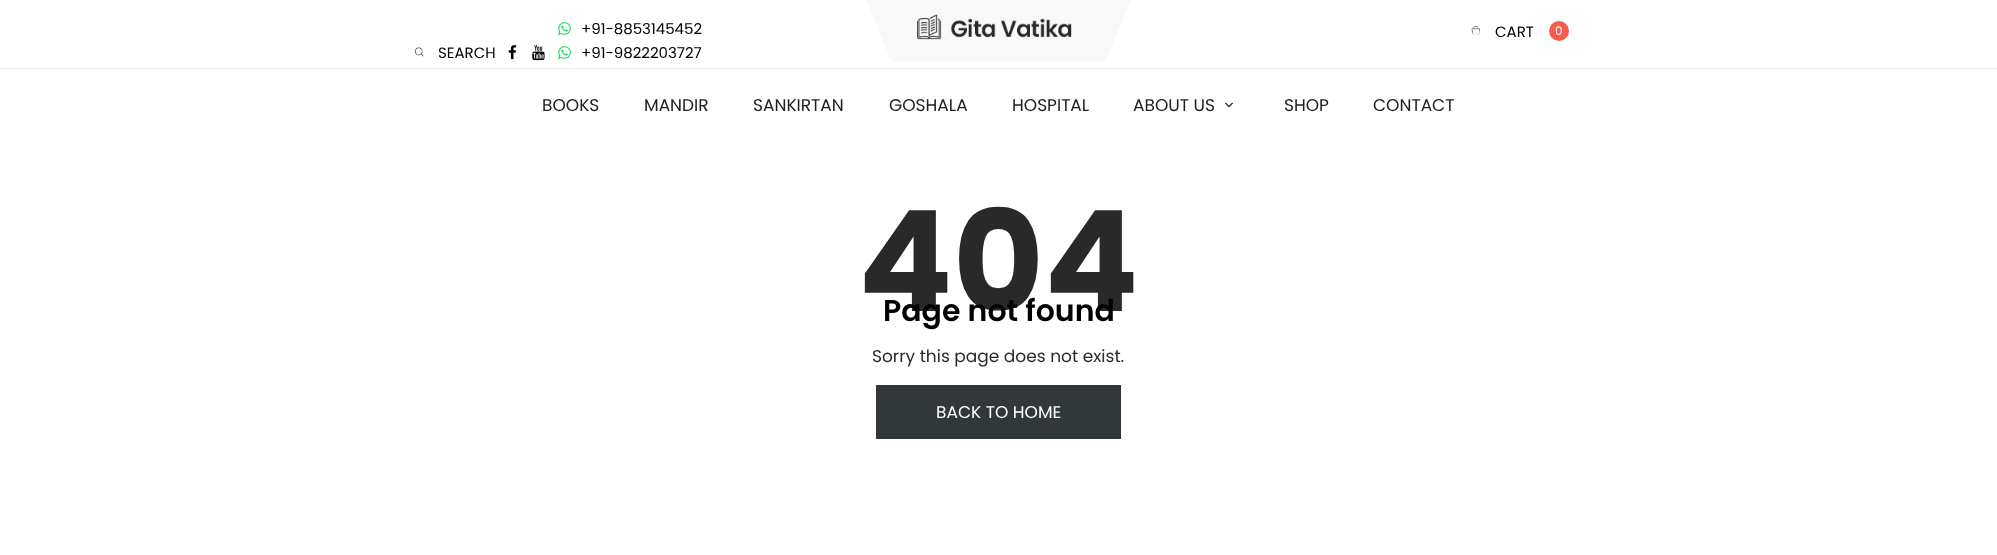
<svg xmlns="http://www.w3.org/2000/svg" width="1997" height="555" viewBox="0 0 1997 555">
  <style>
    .t1 { font: 15px Poppins; fill: #000; }
    .t2 { font: 12px Poppins; fill: #fff; }
    .t3 { font: 17px Poppins; fill: #21201f; }
    .t4 { font: bold 140px Poppins; fill: #292929; }
    .t5 { font: 600 30px Poppins; fill: #000; }
    .t6 { font: 17px Poppins; fill: #292929; }
    .t7 { font: 17px Poppins; fill: #fff; }
  </style>
  <rect width="100%" height="100%" fill="#fff"/>
  <rect x="0" y="68" width="1997" height="1" fill="#e8e8e8"/>
  <image x="414" y="47" width="10" height="10" href="images/1.png"/>
  <text x="438" y="58" class="t1">SEARCH</text>
  <image x="508" y="45" width="9" height="15" href="images/2.png"/>
  <image x="532" y="45" width="13" height="16" href="images/3.png"/>
  <image x="558" y="22" width="13" height="13" href="images/4.png"/>
  <text x="581" y="34" class="t1">+91-8853145452</text>
  <image x="558" y="46" width="13" height="13" href="images/4.png"/>
  <text x="581" y="58" class="t1">+91-9822203727</text>
  <image x="867" y="0" width="264" height="62" href="images/5.png"/>
  <image x="1471" y="26" width="10" height="9" href="images/6.png"/>
  <text x="1495" y="37" class="t1">CART</text>
  <circle cx="1559" cy="31" r="10" fill="#f65d4e"/>
  <text x="1555" y="35" class="t2">0</text>
  <text x="542" y="111" class="t3">BOOKS</text>
  <text x="644" y="111" class="t3">MANDIR</text>
  <text x="753" y="111" class="t3">SANKIRTAN</text>
  <text x="889" y="111" class="t3">GOSHALA</text>
  <text x="1012" y="111" class="t3">HOSPITAL</text>
  <text x="1133" y="111" class="t3">ABOUT US</text>
  <image x="1224" y="102" width="10" height="6" href="images/7.png"/>
  <text x="1284" y="111" class="t3">SHOP</text>
  <text x="1373" y="111" class="t3">CONTACT</text>
  <text x="858" y="311" class="t4">404</text>
  <text x="883" y="321" class="t5">Page not found</text>
  <text x="872" y="362" class="t6">Sorry this page does not exist.</text>
  <rect x="876" y="385" width="245" height="54" fill="#32373a"/>
  <text x="936" y="418" class="t7">BACK TO HOME</text>
</svg>
